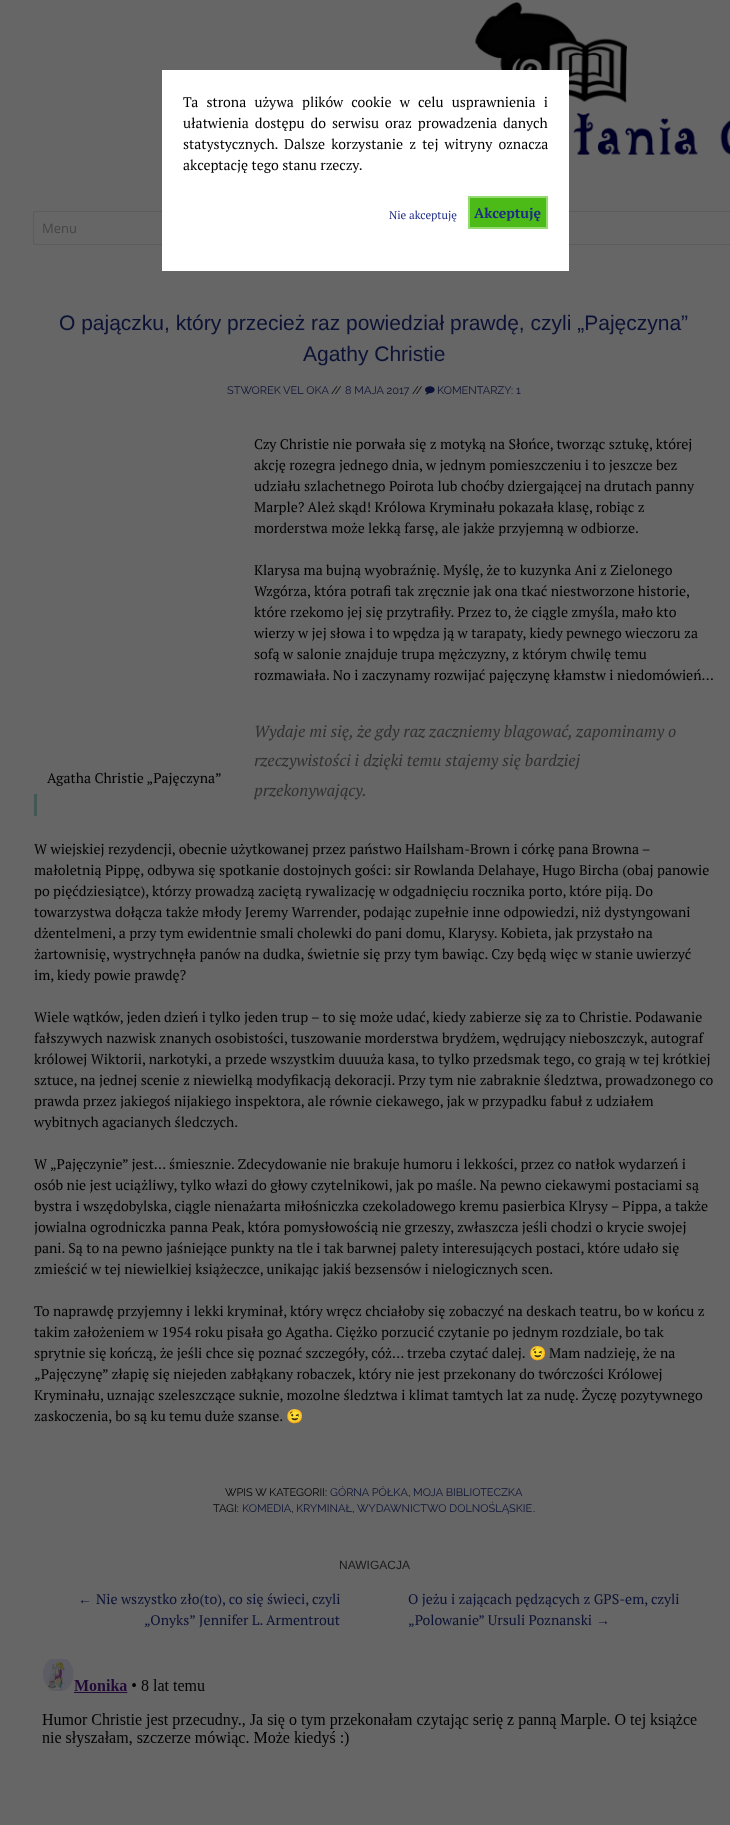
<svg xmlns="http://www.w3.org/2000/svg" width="730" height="1825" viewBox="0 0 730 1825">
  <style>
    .t1 { font: 14px PT Serif; fill: #000; }
    .t2 { font: 11.25px PT Serif; fill: #1d2d85; }
    .t3 { font: bold 14px PT Serif; fill: #1d2d85; }
    .t4 { font: 13px Open Sans; fill: #454545; }
    .t5 { font: 21px Liberation Sans; fill: #0c1235; }
    .t6 { font: 11px Raleway; fill: #0c1235; }
    .t7 { font: 11px Raleway; fill: #000; }
    .t8 { font: italic 16.2px PT Serif; fill: #303030; }
    .t9 { font: 14px Noto Color Emoji; fill: #000; }
    .t10 { font: 12px Liberation Sans; fill: #1a1a1a; }
    .t11 { font: 14px Liberation Serif; fill: #0c1235; }
    .t12 { font: 14px PT Serif; fill: #0c1235; }
  </style>
  <rect width="100%" height="100%" fill="#666"/>
  <image x="168" y="2" width="562" height="166" href="images/1.png"/>
  <rect x="33.5" y="211.5" width="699" height="33" rx="1.5" fill="none" stroke="#5c5c5c"/>
  <rect x="162" y="70" width="407" height="201" fill="#fff"/>
  <text x="183" y="107" word-spacing="4.75" class="t1">Ta strona używa plików cookie w celu usprawnienia i</text>
  <text x="183" y="128" word-spacing="2.5" class="t1">ułatwienia dostępu do serwisu oraz prowadzenia danych</text>
  <text x="183" y="149" word-spacing="2.75" class="t1">statystycznych. Dalsze korzystanie z tej witryny oznacza</text>
  <text x="183" y="170" class="t1">akceptację tego stanu rzeczy.</text>
  <text x="389" y="219" class="t2">Nie akceptuję</text>
  <rect x="469" y="197" width="78" height="31" fill="#4cbb17" stroke="#93db70" stroke-width="2"/>
  <text x="474" y="218" class="t3">Akceptuję</text>
  <text x="42" y="233" class="t4">Menu</text>
  <text x="59" y="330" class="t5">O pajączku, który przecież raz powiedział prawdę, czyli „Pajęczyna”</text>
  <text x="303" y="361" class="t5">Agathy Christie</text>
  <text x="227" y="394" class="t6">STWOREK VEL OKA</text>
  <text x="331" y="394" class="t7">//</text>
  <text x="345" y="394" class="t6">8 MAJA 2017</text>
  <text x="412" y="394" class="t7">//</text>
  <image x="425" y="386" width="10" height="9" href="images/2.png"/>
  <text x="437" y="394" class="t6">KOMENTARZY: 1</text>
  <text x="254" y="449" class="t1">Czy Christie nie porwała się z motyką na Słońce, tworząc sztukę, której</text>
  <text x="254" y="470" class="t1">akcję rozegra jednego dnia, w jednym pomieszczeniu i to jeszcze bez</text>
  <text x="254" y="491" class="t1">udziału szlachetnego Poirota lub choćby dziergającej na drutach panny</text>
  <text x="254" y="512" class="t1">Marple? Ależ skąd! Królowa Kryminału pokazała klasę, robiąc z</text>
  <text x="254" y="533" class="t1">morderstwa może lekką farsę, ale jakże przyjemną w odbiorze.</text>
  <text x="254" y="575" class="t1">Klarysa ma bujną wyobraźnię. Myślę, że to kuzynka Ani z Zielonego</text>
  <text x="254" y="596" class="t1">Wzgórza, która potrafi tak zręcznie jak ona tkać niestworzone historie,</text>
  <text x="254" y="617" class="t1">które rzekomo jej się przytrafiły. Przez to, że ciągle zmyśla, mało kto</text>
  <text x="254" y="638" class="t1">wierzy w jej słowa i to wpędza ją w tarapaty, kiedy pewnego wieczoru za</text>
  <text x="254" y="659" class="t1">sofą w salonie znajduje trupa mężczyzny, z którym chwilę temu</text>
  <text x="254" y="680" class="t1">rozmawiała. No i zaczynamy rozwijać pajęczynę kłamstw i niedomówień…</text>
  <text x="47" y="783" class="t1">Agatha Christie „Pajęczyna”</text>
  <rect x="34" y="794" width="3" height="22" fill="#435856"/>
  <text x="254" y="737" class="t8">Wydaje mi się, że gdy raz zaczniemy blagować, zapominamy o</text>
  <text x="254" y="766" class="t8">rzeczywistości i dzięki temu stajemy się bardziej</text>
  <text x="254" y="796" class="t8">przekonywający.</text>
  <text x="34" y="854" class="t1">W wiejskiej rezydencji, obecnie użytkowanej przez państwo Hailsham-Brown i córkę pana Browna –</text>
  <text x="34" y="875" class="t1">małoletnią Pippę, odbywa się spotkanie dostojnych gości: sir Rowlanda Delahaye, Hugo Bircha (obaj panowie</text>
  <text x="34" y="896" class="t1">po pięćdziesiątce), którzy prowadzą zaciętą rywalizację w odgadnięciu rocznika porto, które piją. Do</text>
  <text x="34" y="917" class="t1">towarzystwa dołącza także młody Jeremy Warrender, podając zupełnie inne odpowiedzi, niż dystyngowani</text>
  <text x="34" y="938" class="t1">dżentelmeni, a przy tym ewidentnie smali cholewki do pani domu, Klarysy. Kobieta, jak przystało na</text>
  <text x="34" y="959" class="t1">żartownisię, wystrychnęła panów na dudka, świetnie się przy tym bawiąc. Czy będą więc w stanie uwierzyć</text>
  <text x="34" y="980" class="t1">im, kiedy powie prawdę?</text>
  <text x="34" y="1022" class="t1">Wiele wątków, jeden dzień i tylko jeden trup – to się może udać, kiedy zabierze się za to Christie. Podawanie</text>
  <text x="34" y="1043" class="t1">fałszywych nazwisk znanych osobistości, tuszowanie morderstwa brydżem, wędrujący nieboszczyk, autograf</text>
  <text x="34" y="1064" class="t1">królowej Wiktorii, narkotyki, a przede wszystkim duuuża kasa, to tylko przedsmak tego, co grają w tej krótkiej</text>
  <text x="34" y="1085" class="t1">sztuce, na jednej scenie z niewielką modyfikacją dekoracji. Przy tym nie zabraknie śledztwa, prowadzonego co</text>
  <text x="34" y="1106" class="t1">prawda przez jakiegoś nijakiego inspektora, ale równie ciekawego, jak w przypadku fabuł z udziałem</text>
  <text x="34" y="1127" class="t1">wybitnych agacianych śledczych.</text>
  <text x="34" y="1169" class="t1">W „Pajęczynie” jest… śmiesznie. Zdecydowanie nie brakuje humoru i lekkości, przez co natłok wydarzeń i</text>
  <text x="34" y="1190" class="t1">osób nie jest uciążliwy, tylko włazi do głowy czytelnikowi, jak po maśle. Na pewno ciekawymi postaciami są</text>
  <text x="34" y="1211" class="t1">bystra i wszędobylska, ciągle nienażarta miłośniczka czekoladowego kremu pasierbica Klrysy – Pippa, a także</text>
  <text x="34" y="1232" class="t1">jowialna ogrodniczka panna Peak, która pomysłowością nie grzeszy, zwłaszcza jeśli chodzi o krycie swojej</text>
  <text x="34" y="1253" class="t1">pani. Są to na pewno jaśniejące punkty na tle i tak barwnej palety interesujących postaci, które udało się</text>
  <text x="34" y="1274" class="t1">zmieścić w tej niewielkiej książeczce, unikając jakiś bezsensów i nielogicznych scen.</text>
  <text x="34" y="1316" class="t1">To naprawdę przyjemny i lekki kryminał, który wręcz chciałoby się zobaczyć na deskach teatru, bo w końcu z</text>
  <text x="34" y="1337" class="t1">takim założeniem w 1954 roku pisała go Agatha. Ciężko porzucić czytanie po jednym rozdziale, bo tak</text>
  <text x="34" y="1358" class="t1">sprytnie się kończą, że jeśli chce się poznać szczegóły, cóż… trzeba czytać dalej.</text>
  <text x="529" y="1358" class="t9">😉</text>
  <text x="549" y="1358" class="t1">Mam nadzieję, że na</text>
  <text x="34" y="1379" class="t1">„Pajęczynę” złapię się niejeden zabłąkany robaczek, który nie jest przekonany do twórczości Królowej</text>
  <text x="34" y="1400" class="t1">Kryminału, uznając szeleszczące suknie, mozolne śledztwa i klimat tamtych lat za nudę. Życzę pozytywnego</text>
  <text x="34" y="1421" class="t1">zaskoczenia, bo są ku temu duże szanse.</text>
  <text x="286" y="1421" class="t9">😉</text>
  <text x="225" y="1496" class="t7">WPIS W KATEGORII:</text>
  <text x="330" y="1496" class="t6">GÓRNA PÓŁKA</text>
  <text x="408" y="1496" class="t7">,</text>
  <text x="413" y="1496" class="t6">MOJA BIBLIOTECZKA</text>
  <text x="213" y="1512" class="t7">TAGI:</text>
  <text x="242" y="1512" class="t6">KOMEDIA</text>
  <text x="291" y="1512" class="t7">,</text>
  <text x="296" y="1512" class="t6">KRYMINAŁ</text>
  <text x="352" y="1512" class="t7">,</text>
  <text x="357" y="1512" class="t6">WYDAWNICTWO DOLNOŚLĄSKIE</text>
  <text x="533" y="1512" class="t7">.</text>
  <text x="339" y="1569" class="t10">NAWIGACJA</text>
  <text x="78" y="1604" class="t11">←</text>
  <text x="96" y="1604" class="t12">Nie wszystko zło(to), co się świeci, czyli</text>
  <text x="144" y="1625" class="t12">„Onyks” Jennifer L. Armentrout</text>
  <text x="408" y="1604" class="t12">O jeżu i zającach pędzących z GPS-em, czyli</text>
  <text x="408" y="1625" class="t12">„Polowanie” Ursuli Poznanski</text>
  <text x="596" y="1625" class="t11">→</text>
  <image x="42" y="1659" width="655" height="88" href="images/3.png"/>
</svg>
